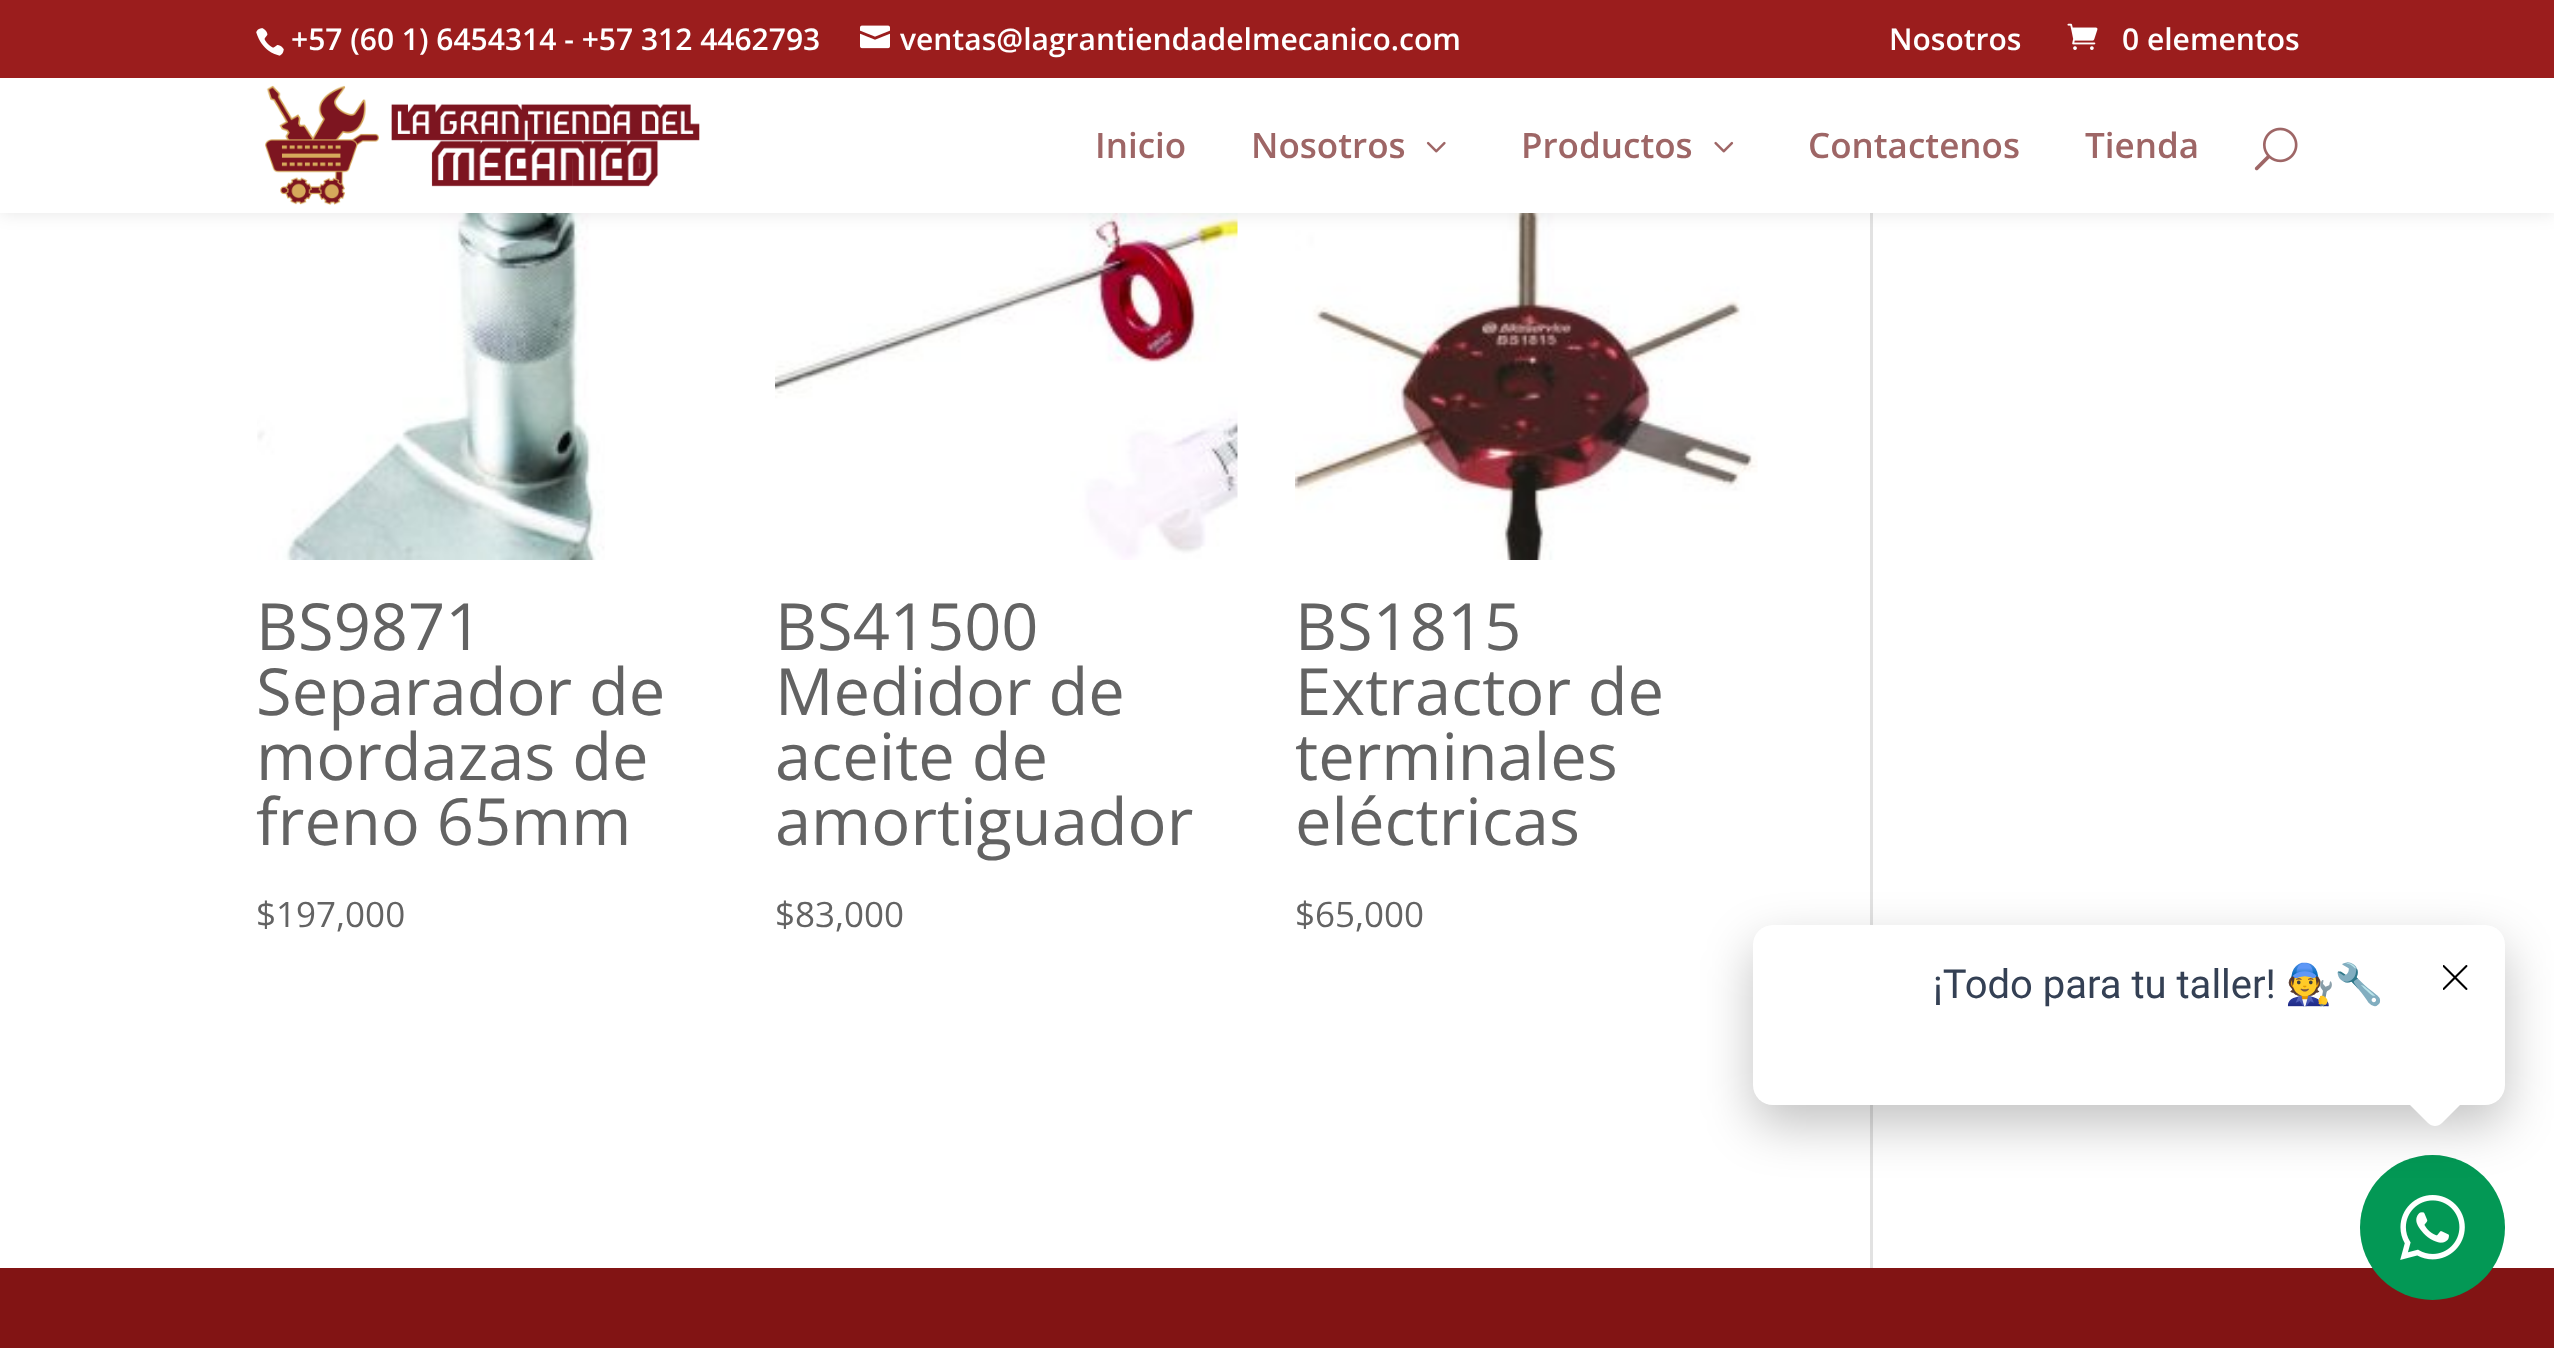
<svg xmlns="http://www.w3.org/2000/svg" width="2554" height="1348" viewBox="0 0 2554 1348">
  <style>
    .t1 { font: 600 30px Open Sans; fill: #fff; }
    .t2 { font: 600 35px Open Sans; fill: #9e6666; }
    .t3 { font: 65px Open Sans; fill: #636363; }
    .t4 { font: 35px Open Sans; fill: #636363; }
    .t5 { font: 40px Roboto; fill: #344054; }
    .t6 { font: 40px Noto Color Emoji; fill: #344054; }
  </style>
  <rect width="100%" height="100%" fill="#fff"/>
  <image x="257" y="213" width="348" height="347" href="images/8.png"/>
  <image x="775" y="213" width="463" height="347" href="images/9.png"/>
  <image x="1295" y="213" width="463" height="347" href="images/10.png"/>
  <rect x="1870" y="213" width="3" height="1055" fill="#e2e2e2"/>
  <rect x="0" y="78" width="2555" height="135" fill="#0000001a" filter="blur(9px)"/>
  <rect x="0" y="0" width="2554" height="78" fill="#9b1d1d"/>
  <image x="256" y="28" width="28" height="28" href="images/1.png"/>
  <text x="291" y="50" class="t1">+57 (60 1) 6454314 - +57 312 4462793</text>
  <image x="860" y="25" width="30" height="24" href="images/2.png"/>
  <text x="900" y="50" class="t1">ventas@lagrantiendadelmecanico.com</text>
  <text x="1889" y="50" class="t1">Nosotros</text>
  <image x="2067" y="23" width="31" height="27" href="images/3.png"/>
  <text x="2122" y="50" class="t1">0 elementos</text>
  <rect x="0" y="78" width="2554" height="135" fill="#fff"/>
  <image x="265" y="85" width="435" height="120" href="images/4.png"/>
  <text x="1095" y="158" class="t2">Inicio</text>
  <text x="1251" y="158" class="t2">Nosotros</text>
  <image x="1426" y="141" width="20" height="12" href="images/5.png"/>
  <text x="1521" y="158" class="t2">Productos</text>
  <image x="1714" y="141" width="20" height="12" href="images/6.png"/>
  <text x="1808" y="158" class="t2">Contactenos</text>
  <text x="2085" y="158" class="t2">Tienda</text>
  <image x="2254" y="127" width="44" height="44" href="images/7.png"/>
  <text x="256" y="650" class="t3">BS9871</text>
  <text x="256" y="715" class="t3">Separador de</text>
  <text x="256" y="780" class="t3">mordazas de</text>
  <text x="256" y="845" class="t3">freno 65mm</text>
  <text x="256" y="927" class="t4">$197,000</text>
  <text x="775" y="650" class="t3">BS41500</text>
  <text x="775" y="715" class="t3">Medidor de</text>
  <text x="775" y="780" class="t3">aceite de</text>
  <text x="775" y="845" class="t3">amortiguador</text>
  <text x="775" y="927" class="t4">$83,000</text>
  <text x="1295" y="650" class="t3">BS1815</text>
  <text x="1295" y="715" class="t3">Extractor de</text>
  <text x="1295" y="780" class="t3">terminales</text>
  <text x="1295" y="845" class="t3">eléctricas</text>
  <text x="1295" y="927" class="t4">$65,000</text>
  <rect x="0" y="1268" width="2554" height="80" fill="#821414"/>
  <circle cx="2432.5" cy="1227.5" r="72.5" fill="#039855"/>
  <image x="2400" y="1195" width="65" height="65" href="images/12.png"/>
  <rect x="1753" y="945" width="752" height="180" rx="20" fill="#0000003d" filter="blur(25px)"/>
  <rect x="1753" y="925" width="752" height="180" rx="20" fill="#fff"/>
  <text x="1933" y="998" class="t5">¡Todo para tu taller!</text>
  <text x="2285" y="998" class="t6">🧑‍🔧🔧</text>
  <path d="M2442 1067L2463 1088C2467 1092 2467 1098 2463 1102L2442 1123C2438 1127 2432 1127 2428 1123L2407 1102C2403 1098 2403 1092 2407 1088L2428 1067C2432 1063 2438 1063 2442 1067Z" fill="#fff"/>
  <image x="2443" y="965" width="25" height="25" href="images/11.png"/>
</svg>
